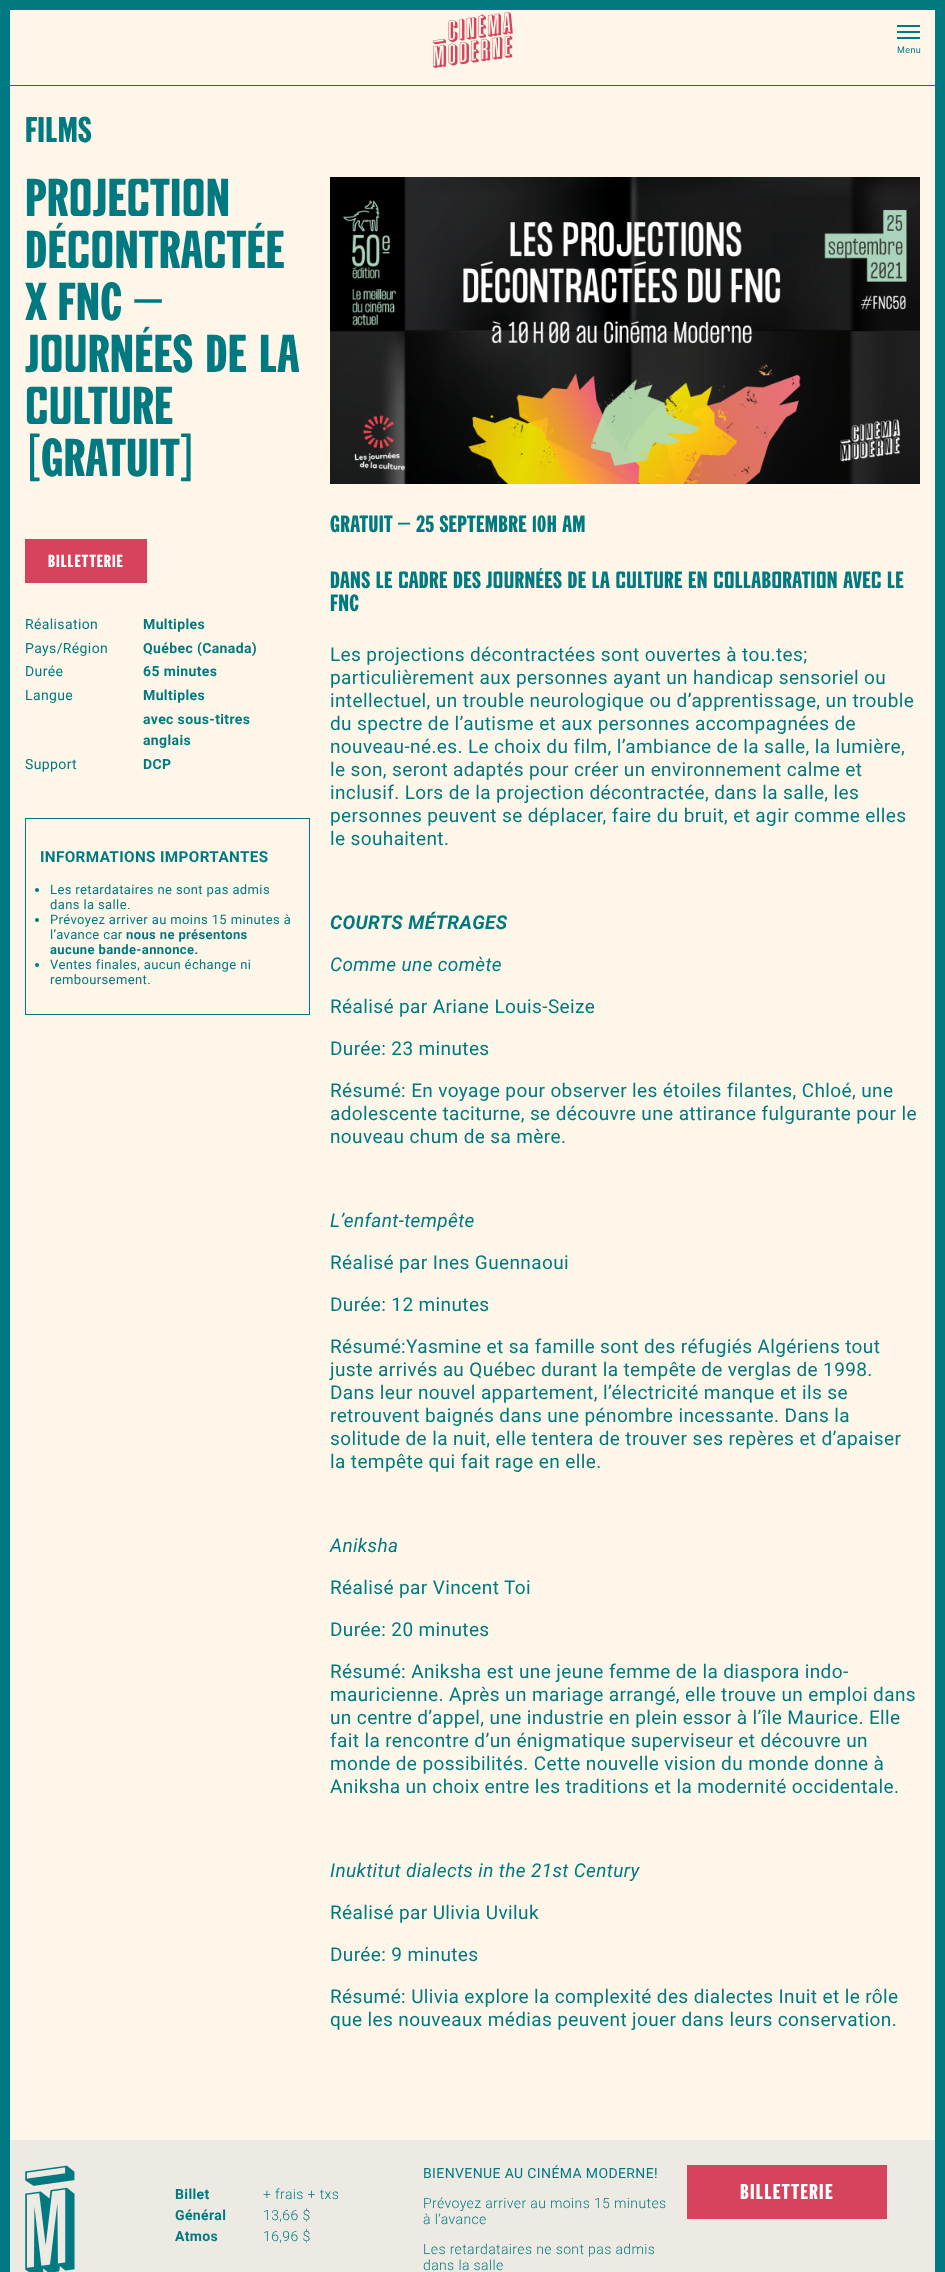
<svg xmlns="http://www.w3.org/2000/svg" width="945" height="2272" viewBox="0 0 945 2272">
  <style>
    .t1 { font: 9px Roboto; letter-spacing: 0.38px; fill: #007a80; }
    .t2 { font: bold 35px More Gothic; letter-spacing: 0.38px; fill: #007a80; }
    .t3 { font: bold 52px More Gothic; letter-spacing: 0.38px; fill: #007a80; }
    .t4 { font: bold 17px More Gothic; letter-spacing: 1px; fill: #fff; }
    .t5 { font: 14px Roboto; letter-spacing: 0.38px; fill: #007a80; }
    .t6 { font: bold 14px Roboto; letter-spacing: 0.38px; fill: #007a80; }
    .t7 { font: bold 15.25px Roboto; letter-spacing: 0.38px; fill: #007a80; }
    .t8 { font: 13px Roboto; letter-spacing: 0.38px; fill: #007a80; }
    .t9 { font: bold 13px Roboto; letter-spacing: 0.38px; fill: #007a80; }
    .t10 { font: bold 23px More Gothic; letter-spacing: 0.38px; fill: #007a80; }
    .t11 { font: 19px Roboto; letter-spacing: 0.38px; fill: #007a80; }
    .t12 { font: italic bold 19px Roboto; letter-spacing: 0.38px; fill: #007a80; }
    .t13 { font: italic 19px Roboto; letter-spacing: 0.38px; fill: #007a80; }
    .t14 { font: 300 14px Roboto; letter-spacing: 0.38px; fill: #007a80; }
    .t15 { font: bold 21px More Gothic; letter-spacing: 1.25px; fill: #fff; }
  </style>
  <rect width="100%" height="100%" fill="#007a80"/>
  <rect x="10" y="86" width="925" height="2054" fill="#fdf6e9"/>
  <rect x="10" y="10" width="925" height="75" fill="#fdf6e9"/>
  <image x="433" y="12" width="80" height="56" href="images/1.png"/>
  <rect x="897" y="25" width="23" height="2" fill="#007a80"/>
  <rect x="897" y="31" width="23" height="2" fill="#007a80"/>
  <rect x="897" y="37" width="23" height="2" fill="#007a80"/>
  <text x="897" y="53" class="t1">Menu</text>
  <text x="25" y="142" class="t2">Films</text>
  <text x="25" y="216" class="t3">Projection</text>
  <text x="25" y="268" class="t3">décontractée</text>
  <text x="25" y="320" class="t3">x FNC –</text>
  <text x="25" y="372" word-spacing="1" class="t3">Journées de la</text>
  <text x="25" y="424" class="t3">culture</text>
  <text x="25" y="476" class="t3">[GRATUIT]</text>
  <rect x="25" y="539" width="122" height="44" fill="#d6435d"/>
  <text x="48" y="567" class="t4">BILLETTERIE</text>
  <text x="25" y="629" class="t5">Réalisation</text>
  <text x="143" y="629" class="t6">Multiples</text>
  <text x="25" y="653" class="t5">Pays/Région</text>
  <text x="143" y="653" class="t6">Québec (Canada)</text>
  <text x="25" y="676" class="t5">Durée</text>
  <text x="143" y="676" class="t6">65 minutes</text>
  <text x="25" y="700" class="t5">Langue</text>
  <text x="143" y="700" class="t6">Multiples</text>
  <text x="143" y="724" class="t6">avec sous-titres</text>
  <text x="143" y="745" class="t6">anglais</text>
  <text x="25" y="769" class="t5">Support</text>
  <text x="143" y="769" class="t6">DCP</text>
  <rect x="25.5" y="818.5" width="284" height="196" fill="none" stroke="#007a80"/>
  <text x="40" y="862" class="t7">INFORMATIONS IMPORTANTES</text>
  <circle cx="37" cy="890" r="2" fill="#007a80"/>
  <text x="50" y="894" class="t8">Les retardataires ne sont pas admis</text>
  <text x="50" y="909" class="t8">dans la salle.</text>
  <circle cx="37" cy="920" r="2" fill="#007a80"/>
  <text x="50" y="924" class="t8">Prévoyez arriver au moins 15 minutes à</text>
  <text x="50" y="939" class="t8">l’avance car</text>
  <text x="126" y="939" class="t9">nous ne présentons</text>
  <text x="50" y="954" class="t9">aucune bande-annonce.</text>
  <circle cx="37" cy="965" r="2" fill="#007a80"/>
  <text x="50" y="969" class="t8">Ventes finales, aucun échange ni</text>
  <text x="50" y="984" class="t8">remboursement.</text>
  <image x="330" y="177" width="590" height="307" href="images/2.png"/>
  <text x="330" y="532" class="t10">GRATUIT – 25 SEPTEMBRE 10h AM</text>
  <text x="330" y="588" word-spacing="0.25" class="t10">Dans le cadre des Journées de la culture en collaboration avec le</text>
  <text x="330" y="611" class="t10">FNC</text>
  <text x="330" y="661" class="t11">Les projections décontractées sont ouvertes à tou.tes;</text>
  <text x="330" y="684" class="t11">particulièrement aux personnes ayant un handicap sensoriel ou</text>
  <text x="330" y="707" class="t11">intellectuel, un trouble neurologique ou d’apprentissage, un trouble</text>
  <text x="330" y="730" class="t11">du spectre de l’autisme et aux personnes accompagnées de</text>
  <text x="330" y="753" class="t11">nouveau-né.es. Le choix du film, l’ambiance de la salle, la lumière,</text>
  <text x="330" y="776" class="t11">le son, seront adaptés pour créer un environnement calme et</text>
  <text x="330" y="799" class="t11">inclusif. Lors de la projection décontractée, dans la salle, les</text>
  <text x="330" y="822" class="t11">personnes peuvent se déplacer, faire du bruit, et agir comme elles</text>
  <text x="330" y="845" class="t11">le souhaitent.</text>
  <text x="330" y="929" class="t12">COURTS MÉTRAGES</text>
  <text x="330" y="971" class="t13">Comme une comète</text>
  <text x="330" y="1013" class="t11">Réalisé par Ariane Louis-Seize</text>
  <text x="330" y="1055" class="t11">Durée: 23 minutes</text>
  <text x="330" y="1097" class="t11">Résumé: En voyage pour observer les étoiles filantes, Chloé, une</text>
  <text x="330" y="1120" class="t11">adolescente taciturne, se découvre une attirance fulgurante pour le</text>
  <text x="330" y="1143" class="t11">nouveau chum de sa mère.</text>
  <text x="330" y="1227" class="t13">L’enfant-tempête</text>
  <text x="330" y="1269" class="t11">Réalisé par Ines Guennaoui</text>
  <text x="330" y="1311" class="t11">Durée: 12 minutes</text>
  <text x="330" y="1353" class="t11">Résumé:Yasmine et sa famille sont des réfugiés Algériens tout</text>
  <text x="330" y="1376" class="t11">juste arrivés au Québec durant la tempête de verglas de 1998.</text>
  <text x="330" y="1399" class="t11">Dans leur nouvel appartement, l’électricité manque et ils se</text>
  <text x="330" y="1422" class="t11">retrouvent baignés dans une pénombre incessante. Dans la</text>
  <text x="330" y="1445" class="t11">solitude de la nuit, elle tentera de trouver ses repères et d’apaiser</text>
  <text x="330" y="1468" class="t11">la tempête qui fait rage en elle.</text>
  <text x="330" y="1552" class="t13">Aniksha</text>
  <text x="330" y="1594" class="t11">Réalisé par Vincent Toi</text>
  <text x="330" y="1636" class="t11">Durée: 20 minutes</text>
  <text x="330" y="1678" class="t11">Résumé: Aniksha est une jeune femme de la diaspora indo-</text>
  <text x="330" y="1701" class="t11">mauricienne. Après un mariage arrangé, elle trouve un emploi dans</text>
  <text x="330" y="1724" class="t11">un centre d’appel, une industrie en plein essor à l’île Maurice. Elle</text>
  <text x="330" y="1747" class="t11">fait la rencontre d’un énigmatique superviseur et découvre un</text>
  <text x="330" y="1770" class="t11">monde de possibilités. Cette nouvelle vision du monde donne à</text>
  <text x="330" y="1793" class="t11">Aniksha un choix entre les traditions et la modernité occidentale.</text>
  <text x="330" y="1877" class="t13">Inuktitut dialects in the 21st Century</text>
  <text x="330" y="1919" class="t11">Réalisé par Ulivia Uviluk</text>
  <text x="330" y="1961" class="t11">Durée: 9 minutes</text>
  <text x="330" y="2003" class="t11">Résumé: Ulivia explore la complexité des dialectes Inuit et le rôle</text>
  <text x="330" y="2026" class="t11">que les nouveaux médias peuvent jouer dans leurs conservation.</text>
  <rect x="10" y="2140" width="925" height="132" fill="#edeae4"/>
  <image x="25" y="2165" width="50" height="107" href="images/3.png"/>
  <text x="175" y="2199" class="t6">Billet</text>
  <text x="263" y="2199" class="t14">+ frais + txs</text>
  <text x="175" y="2220" class="t6">Général</text>
  <text x="263" y="2220" class="t14">13,66 $</text>
  <text x="175" y="2241" class="t6">Atmos</text>
  <text x="263" y="2241" class="t14">16,96 $</text>
  <text x="423" y="2178" class="t5">BIENVENUE AU CINÉMA MODERNE!</text>
  <text x="423" y="2208" class="t14">Prévoyez arriver au moins 15 minutes</text>
  <text x="423" y="2224" class="t14">à l’avance</text>
  <text x="423" y="2254" class="t14">Les retardataires ne sont pas admis</text>
  <text x="423" y="2270" class="t14">dans la salle</text>
  <rect x="687" y="2165" width="200" height="54" fill="#d6435d"/>
  <text x="740" y="2199" class="t15">BILLETTERIE</text>
</svg>
